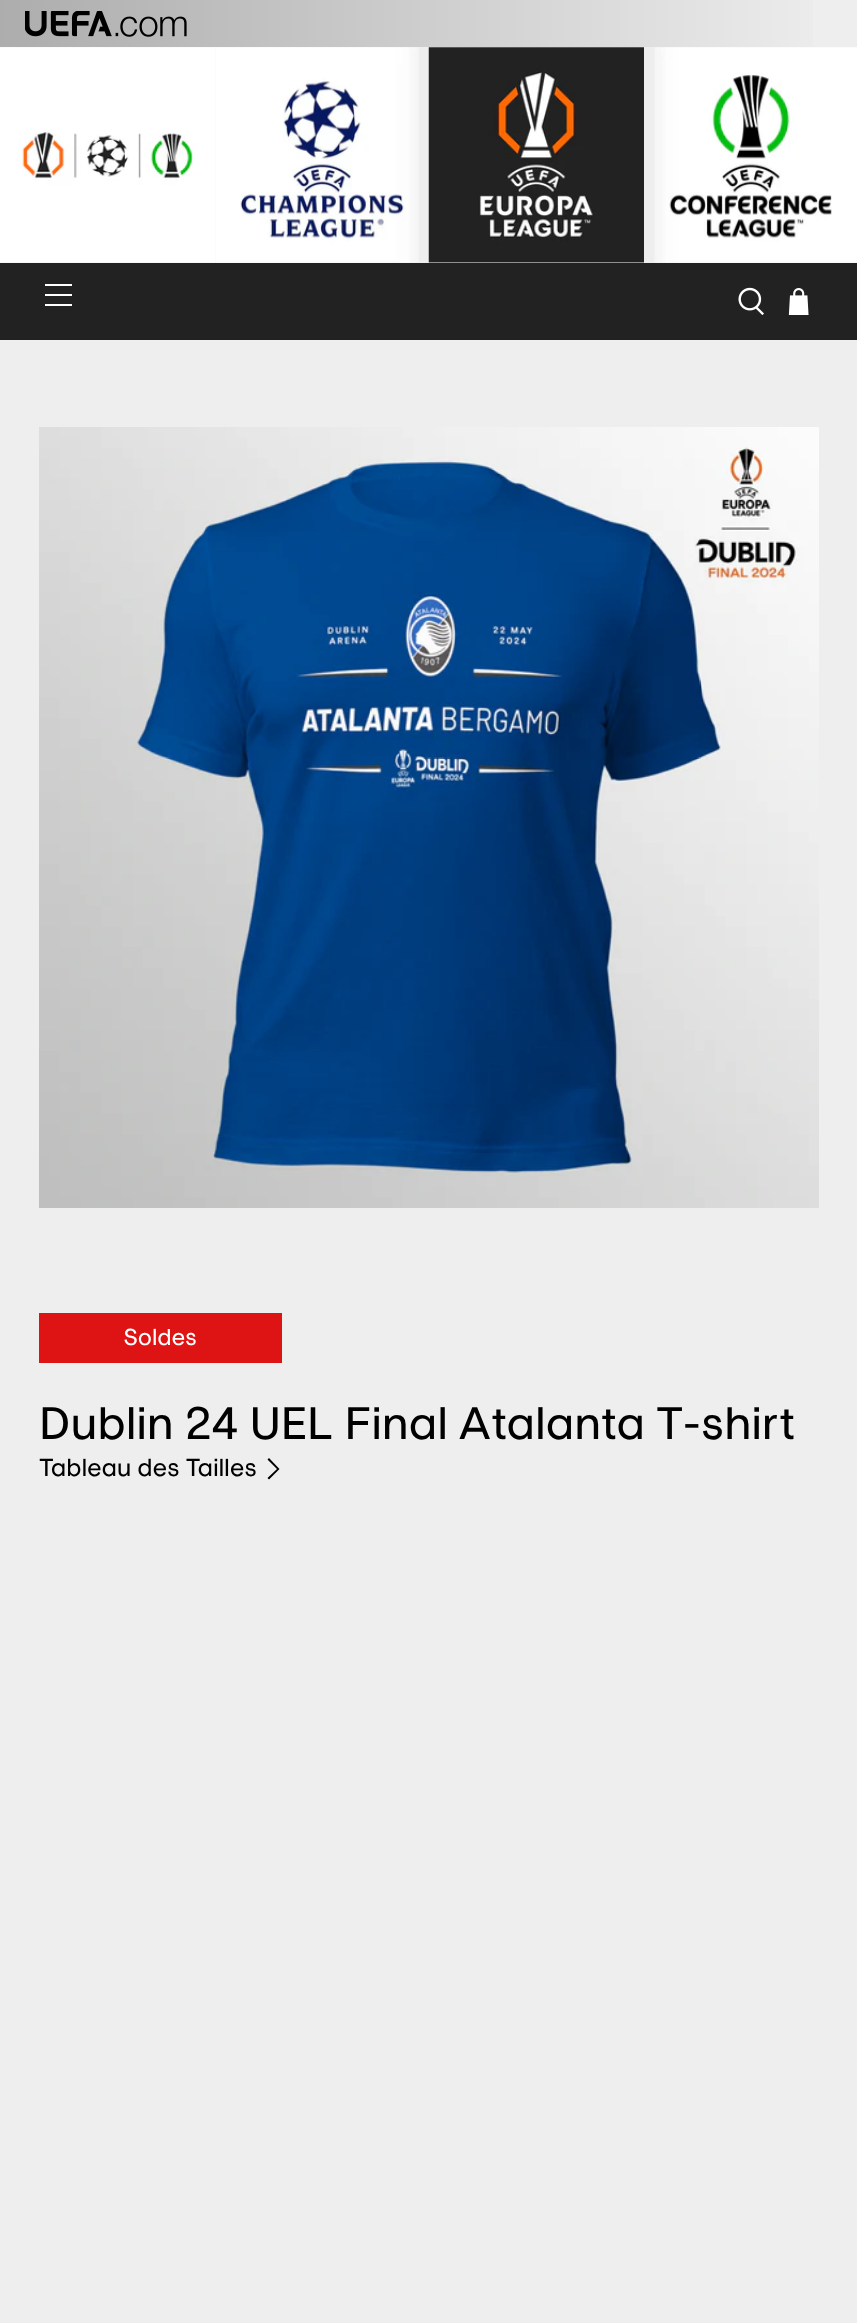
<svg xmlns="http://www.w3.org/2000/svg" width="857" height="2323" viewBox="0 0 857 2323">
  <style>
    .t1 { font: 23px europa; fill: #fff; }
    .t2 { font: 45.5px europa; fill: #000; }
    .t3 { font: 24.5px europa; fill: #000; }
  </style>
  <defs>
    <linearGradient id="g1" gradientUnits="userSpaceOnUse" x1="0" y1="24" x2="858" y2="24"><stop offset="0" stop-color="#adadad"/><stop offset="1" stop-color="#efefef"/></linearGradient>
  </defs>
  <rect width="100%" height="100%" fill="#eee"/>
  <rect x="0" y="0" width="813" height="47" fill="url(#g1)"/>
  <image x="25" y="11" width="162" height="26" href="images/1.png"/>
  <image x="0" y="47" width="216" height="216" href="images/2.png"/>
  <image x="215" y="47" width="204" height="216" href="images/3.png"/>
  <rect x="429" y="47" width="215" height="216" fill="#fff"/>
  <image x="428" y="47" width="216" height="216" href="images/4.png"/>
  <image x="654" y="47" width="203" height="216" href="images/5.png"/>
  <rect x="0" y="263" width="857" height="77" fill="#222"/>
  <rect x="45" y="284" width="27" height="2" fill="#fff"/>
  <rect x="45" y="294" width="27" height="2" fill="#fff"/>
  <rect x="45" y="304" width="27" height="2" fill="#fff"/>
  <image x="738" y="287" width="26" height="28" href="images/6.png"/>
  <image x="788" y="288" width="21" height="27" href="images/7.png"/>
  <image x="39" y="427" width="780" height="781" href="images/8.png"/>
  <rect x="39" y="1313" width="243" height="50" fill="#de1313"/>
  <text x="123" y="1345" class="t1">Soldes</text>
  <text x="39" y="1439" class="t2">Dublin 24 UEL Final Atalanta T-shirt</text>
  <text x="39" y="1476" class="t3">Tableau des Tailles</text>
  <path d="M269 1479.5L267.5 1478L277 1469L267.5 1459.5L269 1458L279.5 1469Z" fill="#000"/>
</svg>
